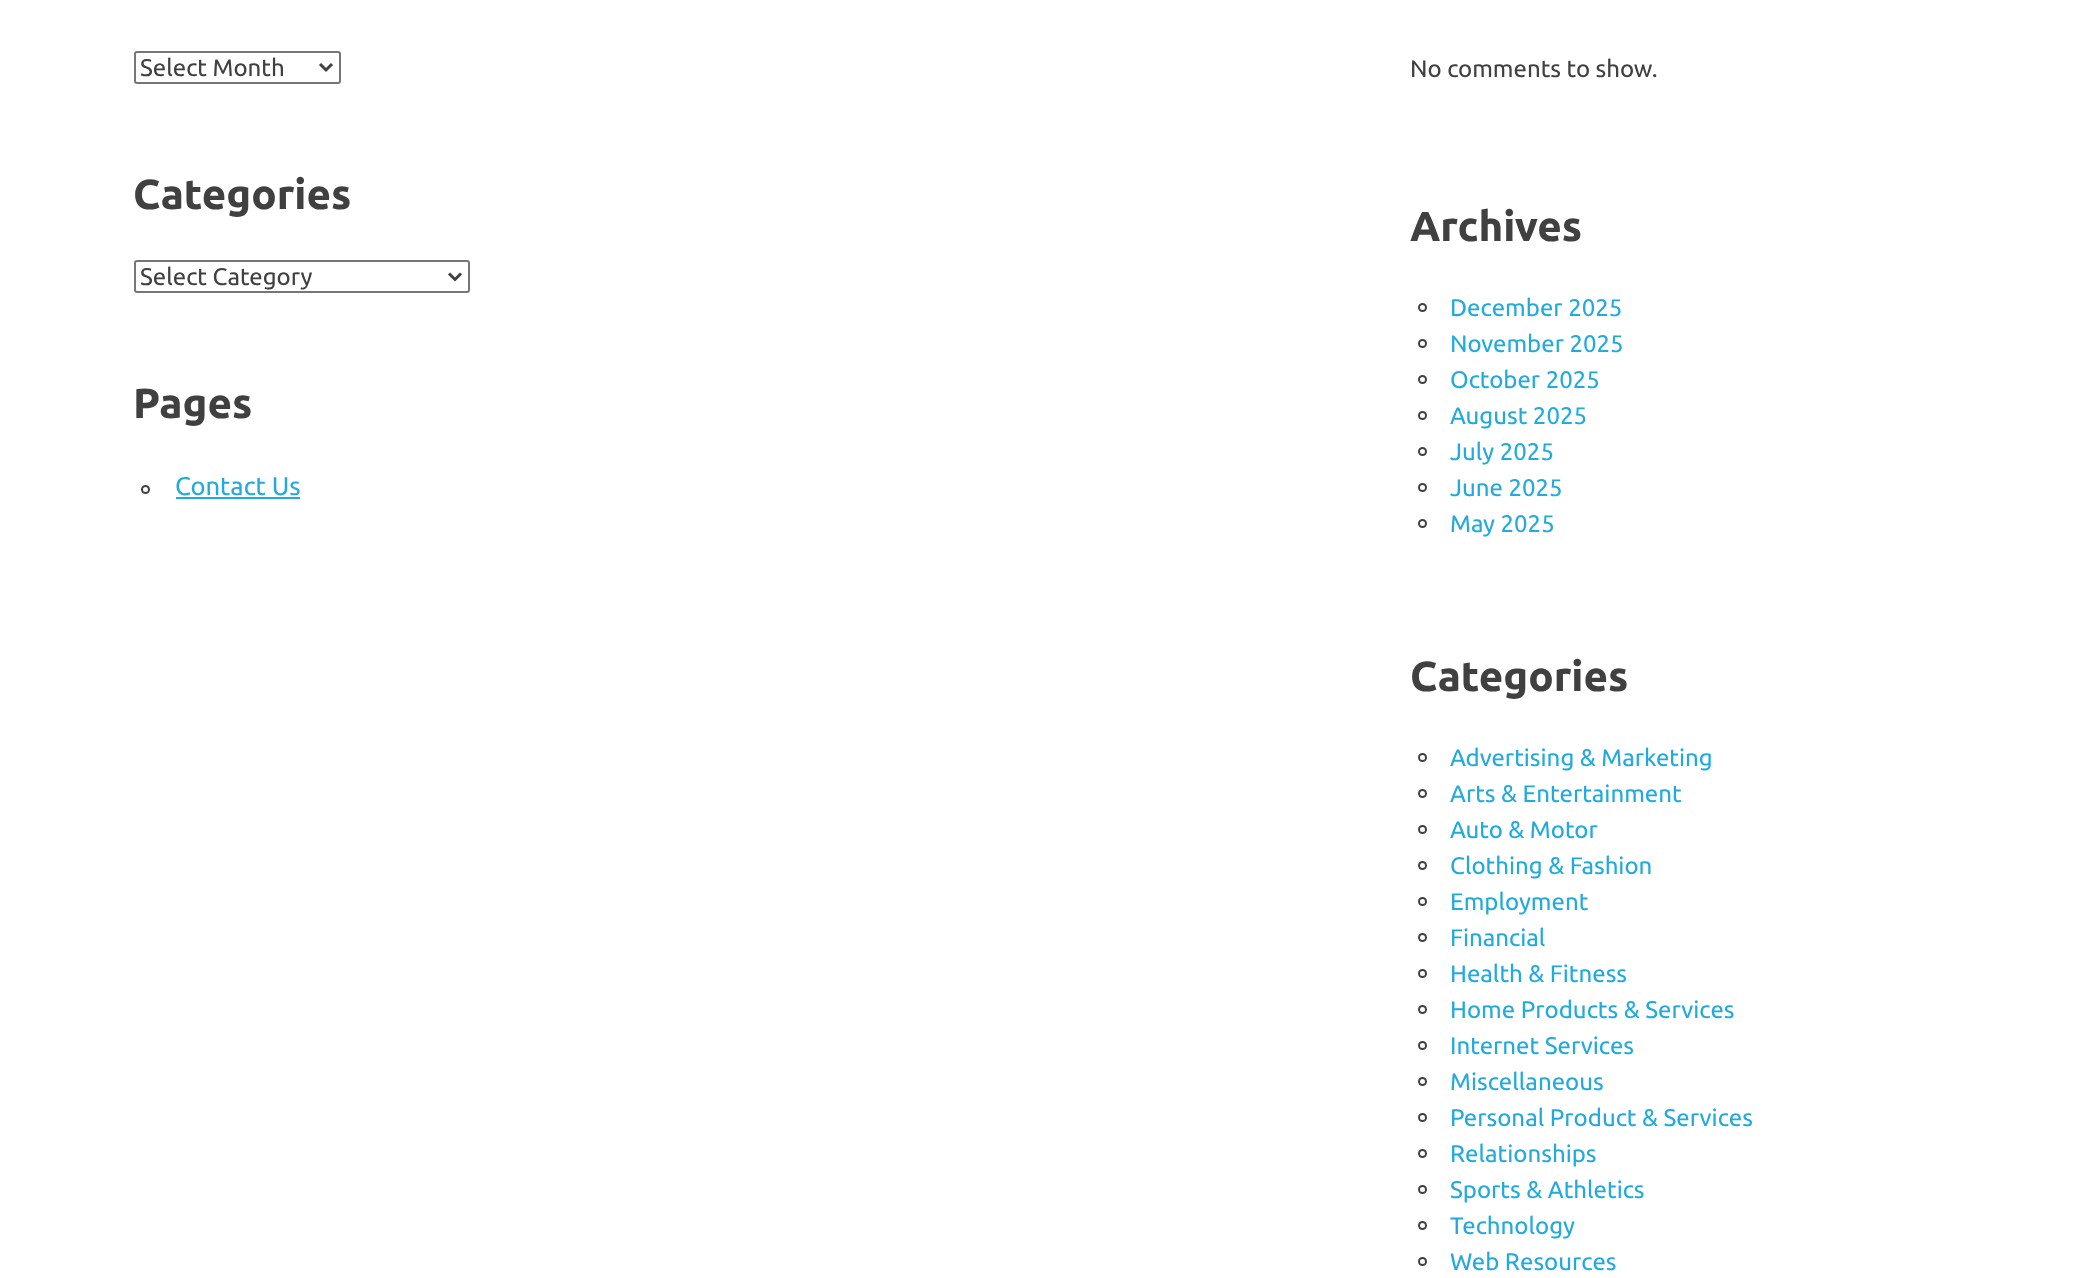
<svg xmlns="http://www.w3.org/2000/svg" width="2089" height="1278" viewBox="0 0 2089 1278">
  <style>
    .t1 { font: 24px Ubuntu; fill: #404040; }
    .t2 { font: bold 42px Ubuntu; fill: #404040; }
    .t3 { font: 25.5px Ubuntu; fill: #2ad; }
    .t4 { font: 24px Ubuntu; fill: #2ad; }
  </style>
  <rect width="100%" height="100%" fill="#fff"/>
  <rect x="135" y="52" width="205" height="31" rx="2" fill="none" stroke="#767676" stroke-width="2"/>
  <path d="M320 64L326 70L332 64" fill="none" stroke="#404040" stroke-width="3"/>
  <text x="140" y="76" class="t1">Select Month</text>
  <text x="133" y="209" class="t2">Categories</text>
  <rect x="135" y="261" width="334" height="31" rx="2" fill="none" stroke="#767676" stroke-width="2"/>
  <path d="M449 273.5L455 279.5L461 273.5" fill="none" stroke="#404040" stroke-width="3"/>
  <text x="140" y="285" class="t1">Select Category</text>
  <text x="133" y="418" class="t2">Pages</text>
  <circle cx="145.5" cy="489.5" r="3.5" fill="none" stroke="#404040" stroke-width="2"/>
  <text x="175" y="495" class="t3">Contact Us</text>
  <rect x="176" y="497" width="124" height="2" fill="#2ad"/>
  <text x="1410" y="77" class="t1">No comments to show.</text>
  <text x="1410" y="241" class="t2">Archives</text>
  <circle cx="1422.5" cy="307.5" r="3.5" fill="none" stroke="#404040" stroke-width="2"/>
  <text x="1450" y="316" class="t4">December 2025</text>
  <circle cx="1422.5" cy="343.5" r="3.5" fill="none" stroke="#404040" stroke-width="2"/>
  <text x="1450" y="352" class="t4">November 2025</text>
  <circle cx="1422.5" cy="379.5" r="3.5" fill="none" stroke="#404040" stroke-width="2"/>
  <text x="1450" y="388" class="t4">October 2025</text>
  <circle cx="1422.5" cy="415.5" r="3.5" fill="none" stroke="#404040" stroke-width="2"/>
  <text x="1450" y="424" class="t4">August 2025</text>
  <circle cx="1422.5" cy="451.5" r="3.5" fill="none" stroke="#404040" stroke-width="2"/>
  <text x="1450" y="460" class="t4">July 2025</text>
  <circle cx="1422.5" cy="487.5" r="3.5" fill="none" stroke="#404040" stroke-width="2"/>
  <text x="1450" y="496" class="t4">June 2025</text>
  <circle cx="1422.5" cy="523.5" r="3.5" fill="none" stroke="#404040" stroke-width="2"/>
  <text x="1450" y="532" class="t4">May 2025</text>
  <text x="1410" y="691" class="t2">Categories</text>
  <circle cx="1422.5" cy="757.5" r="3.5" fill="none" stroke="#404040" stroke-width="2"/>
  <text x="1450" y="766" class="t4">Advertising &amp; Marketing</text>
  <circle cx="1422.5" cy="793.5" r="3.5" fill="none" stroke="#404040" stroke-width="2"/>
  <text x="1450" y="802" class="t4">Arts &amp; Entertainment</text>
  <circle cx="1422.5" cy="829.5" r="3.5" fill="none" stroke="#404040" stroke-width="2"/>
  <text x="1450" y="838" class="t4">Auto &amp; Motor</text>
  <circle cx="1422.5" cy="865.5" r="3.5" fill="none" stroke="#404040" stroke-width="2"/>
  <text x="1450" y="874" class="t4">Clothing &amp; Fashion</text>
  <circle cx="1422.5" cy="901.5" r="3.5" fill="none" stroke="#404040" stroke-width="2"/>
  <text x="1450" y="910" class="t4">Employment</text>
  <circle cx="1422.5" cy="937.5" r="3.5" fill="none" stroke="#404040" stroke-width="2"/>
  <text x="1450" y="946" class="t4">Financial</text>
  <circle cx="1422.5" cy="973.5" r="3.5" fill="none" stroke="#404040" stroke-width="2"/>
  <text x="1450" y="982" class="t4">Health &amp; Fitness</text>
  <circle cx="1422.5" cy="1009.5" r="3.5" fill="none" stroke="#404040" stroke-width="2"/>
  <text x="1450" y="1018" class="t4">Home Products &amp; Services</text>
  <circle cx="1422.5" cy="1045.5" r="3.5" fill="none" stroke="#404040" stroke-width="2"/>
  <text x="1450" y="1054" class="t4">Internet Services</text>
  <circle cx="1422.5" cy="1081.5" r="3.5" fill="none" stroke="#404040" stroke-width="2"/>
  <text x="1450" y="1090" class="t4">Miscellaneous</text>
  <circle cx="1422.5" cy="1117.5" r="3.5" fill="none" stroke="#404040" stroke-width="2"/>
  <text x="1450" y="1126" class="t4">Personal Product &amp; Services</text>
  <circle cx="1422.5" cy="1153.5" r="3.5" fill="none" stroke="#404040" stroke-width="2"/>
  <text x="1450" y="1162" class="t4">Relationships</text>
  <circle cx="1422.5" cy="1189.5" r="3.5" fill="none" stroke="#404040" stroke-width="2"/>
  <text x="1450" y="1198" class="t4">Sports &amp; Athletics</text>
  <circle cx="1422.5" cy="1225.5" r="3.5" fill="none" stroke="#404040" stroke-width="2"/>
  <text x="1450" y="1234" class="t4">Technology</text>
  <circle cx="1422.5" cy="1261.5" r="3.5" fill="none" stroke="#404040" stroke-width="2"/>
  <text x="1450" y="1270" class="t4">Web Resources</text>
</svg>
